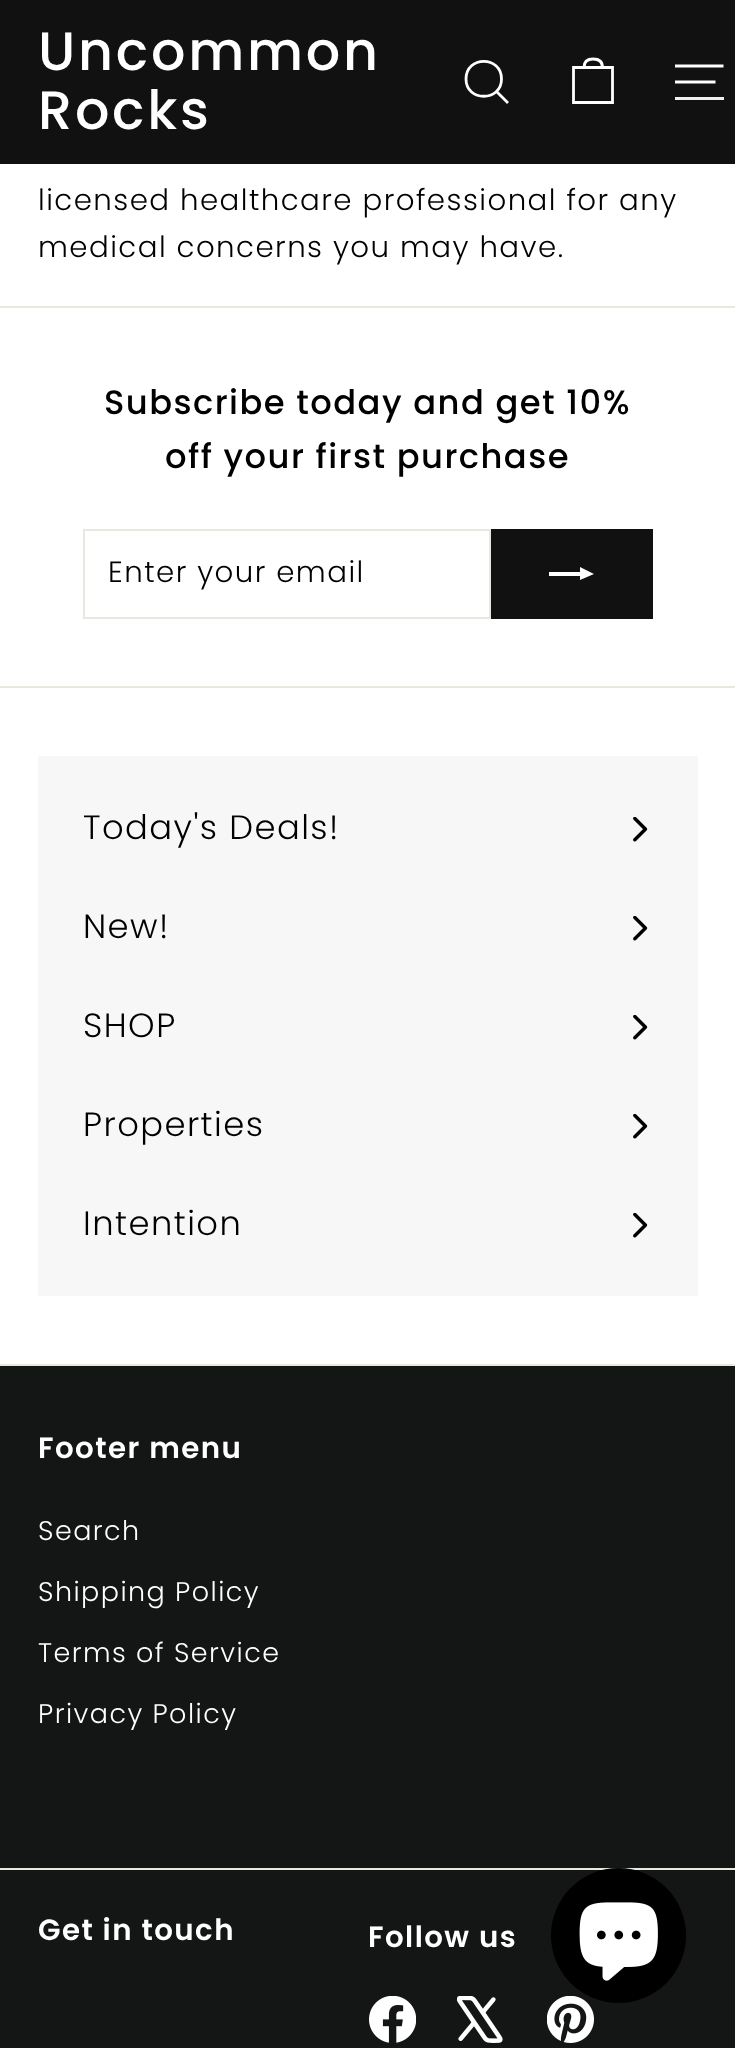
<svg xmlns="http://www.w3.org/2000/svg" width="735" height="2048" viewBox="0 0 735 2048">
  <style>
    .t1 { font: 500 54px Poppins; letter-spacing: 2.75px; fill: #fff; }
    .t2 { font: 300 29.25px Poppins; letter-spacing: 1.45px; fill: #000; }
    .t3 { font: 500 33.75px Poppins; letter-spacing: 1.45px; fill: #000; }
    .t4 { font: 300 33.75px Poppins; letter-spacing: 1.45px; fill: #000; }
    .t5 { font: 600 29.25px Poppins; letter-spacing: 1.45px; fill: #fff; }
    .t6 { font: 300 27px Poppins; letter-spacing: 1.45px; fill: #fff; }
  </style>
  <rect width="100%" height="100%" fill="#fff"/>
  <rect x="0" y="0" width="735" height="164" fill="#111"/>
  <text x="38" y="70" class="t1">Uncommon</text>
  <text x="38" y="129" class="t1">Rocks</text>
  <path d="M501.5 79C501.5 102 466 102 466 79C466 55.5 501.5 55.5 501.5 79M508 103L496.5 91.5" fill="none" stroke="#fff" stroke-width="2.8"/>
  <path d="M584 67.5C584 61 588 59 593 59C598.5 59 602.5 61 602.5 67.5M573.5 67.5H612.5V102.5H573.5Z" fill="none" stroke="#fff" stroke-width="2.8"/>
  <path d="M675 66H723.5M675 82H715.5" fill="none" stroke="#fff" stroke-width="2.8"/>
  <rect x="675" y="97" width="49" height="3" fill="#efefef"/>
  <text x="38" y="210" class="t2">licensed healthcare professional for any</text>
  <text x="38" y="257" class="t2">medical concerns you may have.</text>
  <rect x="0" y="306" width="735" height="2" fill="#e8e8e1"/>
  <text x="104" y="414" class="t3">Subscribe today and get 10%</text>
  <text x="165" y="468" class="t3">off your first purchase</text>
  <rect x="84" y="530" width="406" height="88" fill="none" stroke="#e8e8e1" stroke-width="2"/>
  <text x="108" y="582" class="t2">Enter your email</text>
  <rect x="491" y="529" width="162" height="90" fill="#111"/>
  <path d="M549 576V572H580V567L594 574L580 580V576Z" fill="#fff"/>
  <rect x="0" y="686" width="735" height="2" fill="#e8e8e1"/>
  <image x="633" y="817" width="15" height="25" href="images/1.png"/>
  <image x="633" y="916" width="15" height="25" href="images/1.png"/>
  <image x="633" y="1015" width="15" height="25" href="images/1.png"/>
  <image x="633" y="1114" width="15" height="25" href="images/1.png"/>
  <image x="633" y="1213" width="15" height="25" href="images/1.png"/>
  <rect x="38" y="756" width="660" height="540" fill="#00000008"/>
  <text x="83" y="839" class="t4">Today's Deals!</text>
  <text x="83" y="938" class="t4">New!</text>
  <text x="83" y="1037" class="t4">SHOP</text>
  <text x="83" y="1136" class="t4">Properties</text>
  <text x="83" y="1235" class="t4">Intention</text>
  <rect x="0" y="1366" width="735" height="682" fill="#141515"/>
  <rect x="0" y="1364" width="735" height="2" fill="#e8e8e1"/>
  <text x="38" y="1458" class="t5">Footer menu</text>
  <text x="38" y="1540" class="t6">Search</text>
  <text x="38" y="1601" class="t6">Shipping Policy</text>
  <text x="38" y="1662" class="t6">Terms of Service</text>
  <text x="38" y="1723" class="t6">Privacy Policy</text>
  <rect x="0" y="1868" width="735" height="2" fill="#e8e8e1"/>
  <text x="38" y="1940" class="t5">Get in touch</text>
  <text x="368" y="1947" class="t5">Follow us</text>
  <image x="369" y="1996" width="47" height="47" href="images/2.png"/>
  <image x="457" y="1996" width="46" height="47" href="images/3.png"/>
  <image x="547" y="1996" width="47" height="47" href="images/4.png"/>
  <circle cx="618.5" cy="1935.5" r="67.5" fill="#000"/>
  <image x="579" y="1902" width="79" height="79" href="images/5.png"/>
</svg>
